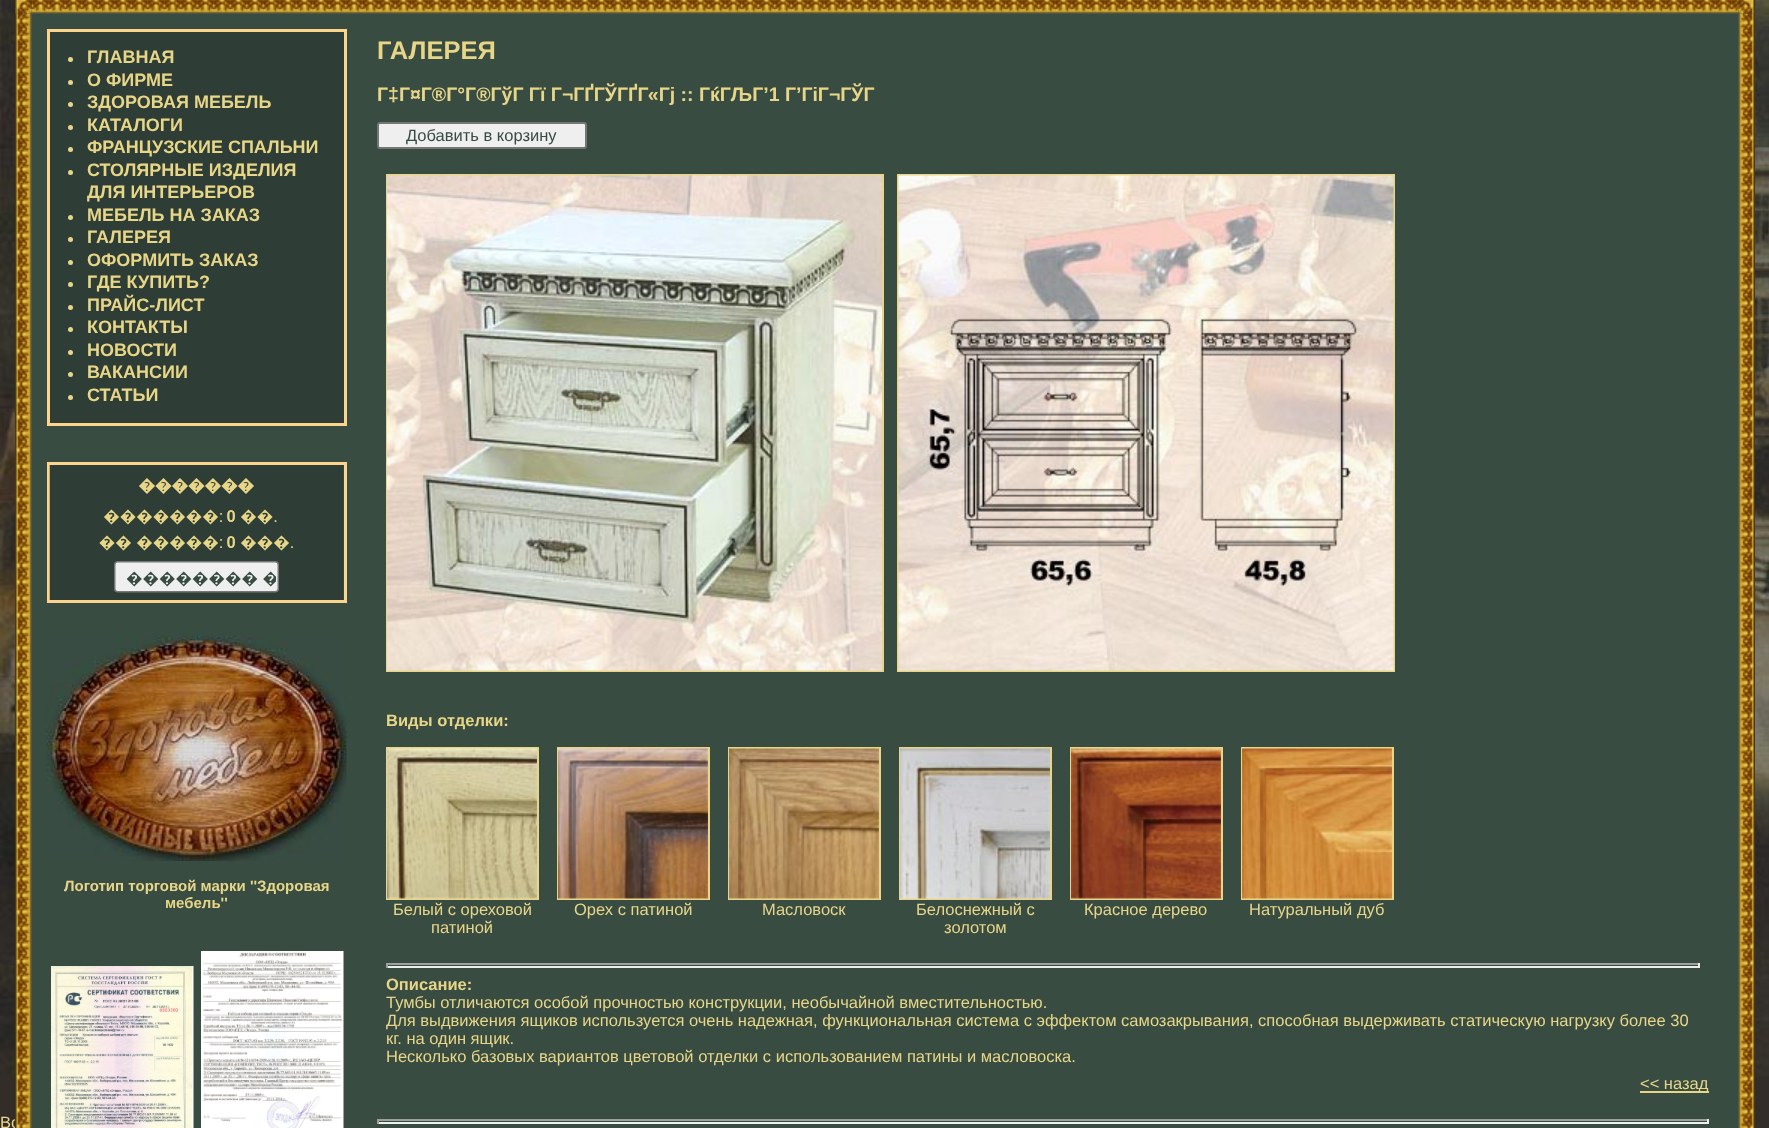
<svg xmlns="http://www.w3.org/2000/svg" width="1769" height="1128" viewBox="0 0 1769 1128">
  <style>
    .t1 { font: 16.5px Liberation Sans; fill: #e8d688; }
    .t2 { font: bold 18px Liberation Sans; fill: #e8d688; }
    .t3 { font: bold 15px Liberation Sans; fill: #e8d688; }
    .t4 { font: bold 25.5px Liberation Sans; fill: #e8d688; }
    .t5 { font: bold 19.5px Liberation Sans; fill: #e8d688; }
    .t6 { font: 16.5px Liberation Sans; fill: #384c42; }
    .t7 { font: bold 16.5px Liberation Sans; fill: #e8d688; }
  </style>
  <rect width="100%" height="100%" fill="#322d29"/>
  <image x="0" y="0" width="15" height="1077" href="images/1.png"/>
  <image x="1755" y="0" width="14" height="1077" href="images/2.png"/>
  <text x="0" y="1128" class="t1">Вс</text>
  <rect x="15" y="0" width="1740" height="1128" fill="#384c42"/>
  <image x="31" y="0" width="1708" height="14" href="images/4.png"/>
  <image x="15" y="13" width="17" height="1115" href="images/6.png"/>
  <image x="15" y="0" width="17" height="14" href="images/3.png"/>
  <image x="1738" y="13" width="17" height="1115" href="images/19.png"/>
  <image x="1738" y="0" width="17" height="14" href="images/5.png"/>
  <rect x="48.5" y="30.5" width="297" height="394" fill="#2e3e36" stroke="#fcd48c" stroke-width="3"/>
  <circle cx="70.5" cy="59.5" r="2.5" fill="#e8d688"/>
  <text x="87" y="63" class="t2">ГЛАВНАЯ</text>
  <circle cx="70.5" cy="82.5" r="2.5" fill="#e8d688"/>
  <text x="87" y="86" class="t2">О ФИРМЕ</text>
  <circle cx="70.5" cy="104.5" r="2.5" fill="#e8d688"/>
  <text x="87" y="108" class="t2">ЗДОРОВАЯ МЕБЕЛЬ</text>
  <circle cx="70.5" cy="127.5" r="2.5" fill="#e8d688"/>
  <text x="87" y="131" class="t2">КАТАЛОГИ</text>
  <circle cx="70.5" cy="149.5" r="2.5" fill="#e8d688"/>
  <text x="87" y="153" class="t2">ФРАНЦУЗСКИЕ СПАЛЬНИ</text>
  <circle cx="70.5" cy="172.5" r="2.5" fill="#e8d688"/>
  <text x="87" y="176" class="t2">СТОЛЯРНЫЕ ИЗДЕЛИЯ</text>
  <text x="87" y="198" class="t2">ДЛЯ ИНТЕРЬЕРОВ</text>
  <circle cx="70.5" cy="217.5" r="2.5" fill="#e8d688"/>
  <text x="87" y="221" class="t2">МЕБЕЛЬ НА ЗАКАЗ</text>
  <circle cx="70.5" cy="239.5" r="2.5" fill="#e8d688"/>
  <text x="87" y="243" class="t2">ГАЛЕРЕЯ</text>
  <circle cx="70.5" cy="262.5" r="2.5" fill="#e8d688"/>
  <text x="87" y="266" class="t2">ОФОРМИТЬ ЗАКАЗ</text>
  <circle cx="70.5" cy="284.5" r="2.5" fill="#e8d688"/>
  <text x="87" y="288" class="t2">ГДЕ КУПИТЬ?</text>
  <circle cx="70.5" cy="307.5" r="2.5" fill="#e8d688"/>
  <text x="87" y="311" class="t2">ПРАЙС-ЛИСТ</text>
  <circle cx="70.5" cy="329.5" r="2.5" fill="#e8d688"/>
  <text x="87" y="333" class="t2">КОНТАКТЫ</text>
  <circle cx="70.5" cy="352.5" r="2.5" fill="#e8d688"/>
  <text x="87" y="356" class="t2">НОВОСТИ</text>
  <circle cx="70.5" cy="374.5" r="2.5" fill="#e8d688"/>
  <text x="87" y="378" class="t2">ВАКАНСИИ</text>
  <circle cx="70.5" cy="397.5" r="2.5" fill="#e8d688"/>
  <text x="87" y="401" class="t2">СТАТЬИ</text>
  <rect x="48.5" y="463.5" width="297" height="138" fill="none" stroke="#fcd48c" stroke-width="3"/>
  <image x="49" y="465" width="295" height="135" href="images/7.png"/>
  <image x="46" y="636" width="301" height="225" href="images/8.png"/>
  <text x="64" y="891" class="t3">Логотип торговой марки ''Здоровая</text>
  <text x="165" y="908" class="t3">мебель''</text>
  <image x="51" y="966" width="143" height="162" href="images/9.png"/>
  <image x="201" y="951" width="143" height="177" href="images/10.png"/>
  <text x="377" y="59" class="t4">ГАЛЕРЕЯ</text>
  <text x="377" y="101" class="t5">Г‡Г¤Г®Г°Г®ГўГ Гї Г¬ГҐГЎГҐГ«Гј :: ГќГЉГ’1 Г’ГіГ¬ГЎГ</text>
  <rect x="378" y="123" width="208" height="25" rx="2" fill="#efefef" stroke="#767676" stroke-width="2"/>
  <text x="406" y="141" class="t6">Добавить в корзину</text>
  <rect x="387" y="175" width="496" height="496" fill="none" stroke="#e8d688" stroke-width="2"/>
  <rect x="898" y="175" width="496" height="496" fill="none" stroke="#e8d688" stroke-width="2"/>
  <image x="387" y="175" width="495" height="496" href="images/11.png"/>
  <image x="898" y="175" width="496" height="496" href="images/12.png"/>
  <text x="386" y="726" class="t7">Виды отделки:</text>
  <rect x="387" y="748" width="151" height="151" fill="none" stroke="#e8d688" stroke-width="2"/>
  <image x="387" y="748" width="150" height="151" href="images/13.png"/>
  <text x="393" y="915" class="t1">Белый с ореховой</text>
  <text x="431" y="933" class="t1">патиной</text>
  <rect x="558" y="748" width="151" height="151" fill="none" stroke="#e8d688" stroke-width="2"/>
  <image x="558" y="748" width="150" height="151" href="images/14.png"/>
  <text x="574" y="915" class="t1">Орех с патиной</text>
  <rect x="729" y="748" width="151" height="151" fill="none" stroke="#e8d688" stroke-width="2"/>
  <image x="729" y="748" width="150" height="151" href="images/15.png"/>
  <text x="762" y="915" class="t1">Масловоск</text>
  <rect x="900" y="748" width="151" height="151" fill="none" stroke="#e8d688" stroke-width="2"/>
  <image x="900" y="748" width="150" height="151" href="images/16.png"/>
  <text x="916" y="915" class="t1">Белоснежный с</text>
  <text x="944" y="933" class="t1">золотом</text>
  <rect x="1071" y="748" width="151" height="151" fill="none" stroke="#e8d688" stroke-width="2"/>
  <image x="1071" y="748" width="150" height="151" href="images/17.png"/>
  <text x="1084" y="915" class="t1">Красное дерево</text>
  <rect x="1242" y="748" width="151" height="151" fill="none" stroke="#e8d688" stroke-width="2"/>
  <image x="1242" y="748" width="150" height="151" href="images/18.png"/>
  <text x="1249" y="915" class="t1">Натуральный дуб</text>
  <rect x="386" y="963" width="1314" height="2" fill="#9f9f9f"/>
  <rect x="1698" y="963" width="2" height="5" fill="#eee"/>
  <rect x="386" y="966" width="1314" height="2" fill="#eee"/>
  <rect x="386" y="963" width="2" height="5" fill="#9f9f9f"/>
  <text x="386" y="990" class="t7">Описание:</text>
  <text x="386" y="1008" class="t1">Тумбы отличаются особой прочностью конструкции, необычайной вместительностью.</text>
  <text x="386" y="1026" class="t1">Для выдвижения ящиков используется очень надежная, функциональная система с эффектом самозакрывания, способная выдерживать статическую нагрузку более 30</text>
  <text x="386" y="1044" class="t1">кг. на один ящик.</text>
  <text x="386" y="1062" class="t1">Несколько базовых вариантов цветовой отделки с использованием патины и масловоска.</text>
  <rect x="1640" y="1091" width="69" height="2" fill="#e8d688"/>
  <text x="1640" y="1089" class="t1">&lt;&lt; назад</text>
  <rect x="377" y="1119" width="1332" height="2" fill="#9f9f9f"/>
  <rect x="1707" y="1119" width="2" height="5" fill="#eee"/>
  <rect x="377" y="1122" width="1332" height="2" fill="#eee"/>
  <rect x="377" y="1119" width="2" height="5" fill="#9f9f9f"/>
</svg>
